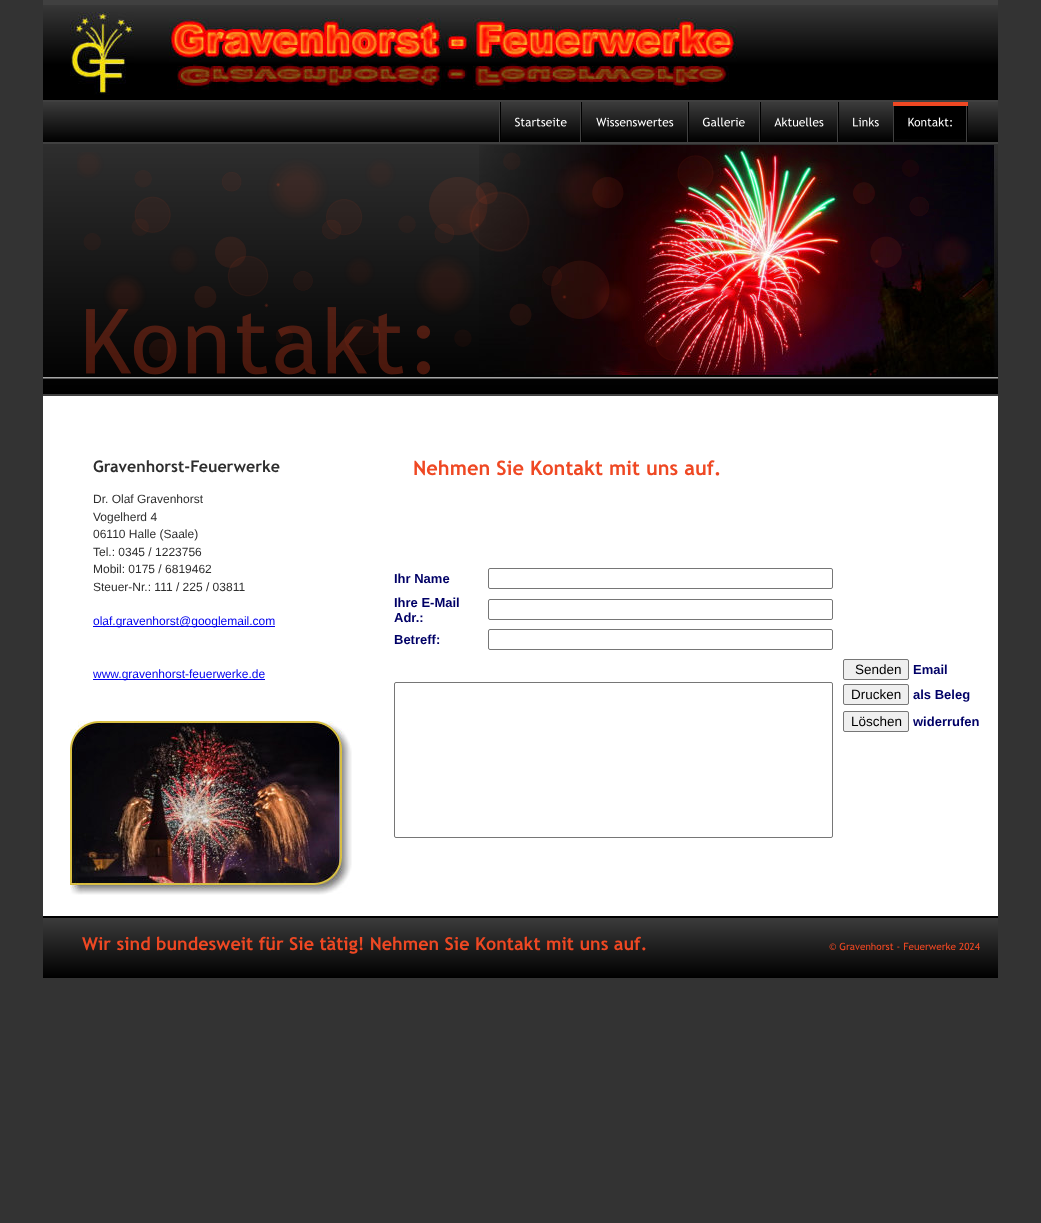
<svg xmlns="http://www.w3.org/2000/svg" width="1041" height="1223" viewBox="0 0 1041 1223">
  <style>
    .t1 { font: bold 16px Trebuchet MS; fill: #2e2e2e; }
    .t2 { font: 12px Liberation Sans; fill: #2e2e2e; }
    .t3 { font: 12px Liberation Sans; fill: #00e; }
    .t4 { font: bold 20px Trebuchet MS; fill: #ef4823; }
    .t5 { font: bold 13px Liberation Sans; fill: #006; }
    .t6 { font: 13.5px Liberation Sans; fill: #000; }
    .t7 { font: bold 18px Trebuchet MS; fill: #ef4823; }
    .t8 { font: 10px Trebuchet MS; fill: #ef4823; }
  </style>
  <rect width="100%" height="100%" fill="#333"/>
  <image x="43" y="0" width="955" height="396" href="images/1.png"/>
  <rect x="43" y="396" width="955" height="520" fill="#fff"/>
  <image x="499" y="102" width="83" height="40" href="images/2.png"/>
  <image x="596" y="102" width="93" height="40" href="images/3.png"/>
  <image x="702" y="102" width="59" height="40" href="images/4.png"/>
  <image x="774" y="102" width="65" height="40" href="images/5.png"/>
  <image x="853" y="102" width="42" height="40" href="images/6.png"/>
  <image x="893" y="102" width="75" height="37" href="images/7.png"/>
  <image x="908" y="139" width="60" height="3" href="images/8.png"/>
  <image x="70" y="12" width="64" height="83" href="images/9.png"/>
  <image x="169" y="18" width="568" height="72" href="images/10.png"/>
  <image x="479" y="145" width="519" height="231" href="images/11.png"/>
  <image x="77" y="152" width="895" height="209" href="images/12.png"/>
  <image x="86" y="307" width="344" height="68" href="images/13.png"/>
  <text x="93" y="472" class="t1">Gravenhorst-Feuerwerke</text>
  <text x="93" y="503" class="t2">Dr. Olaf Gravenhorst</text>
  <text x="93" y="521" class="t2">Vogelherd 4</text>
  <text x="93" y="538" class="t2">06110 Halle (Saale)</text>
  <text x="93" y="556" class="t2">Tel.: 0345 / 1223756</text>
  <text x="93" y="573" class="t2">Mobil: 0175 / 6819462</text>
  <text x="93" y="591" class="t2">Steuer-Nr.: 111 / 225 / 03811</text>
  <rect x="93" y="626" width="182" height="1" fill="#00e"/>
  <text x="93" y="625" class="t3">olaf.gravenhorst@googlemail.com</text>
  <rect x="93" y="679" width="172" height="1" fill="#00e"/>
  <text x="93" y="678" class="t3">www.gravenhorst-feuerwerke.de</text>
  <text x="413" y="475" class="t4">Nehmen Sie Kontakt mit uns auf.</text>
  <text x="394" y="583" class="t5">Ihr Name</text>
  <rect x="488.5" y="568.5" width="344" height="20" rx="1.5" fill="none" stroke="#767676"/>
  <text x="394" y="607" class="t5">Ihre E-Mail</text>
  <text x="394" y="622" class="t5">Adr.:</text>
  <rect x="488.5" y="599.5" width="344" height="20" rx="1.5" fill="none" stroke="#767676"/>
  <text x="394" y="644" class="t5">Betreff:</text>
  <rect x="488.5" y="629.5" width="344" height="20" rx="1.5" fill="none" stroke="#767676"/>
  <rect x="394.5" y="682.5" width="438" height="155" rx="1.5" fill="none" stroke="#767676"/>
  <rect x="843.5" y="659.5" width="65" height="20" rx="1.5" fill="#efefef" stroke="#767676"/>
  <text x="855" y="674" class="t6">Senden</text>
  <text x="913" y="674" class="t5">Email</text>
  <rect x="843.5" y="684.5" width="65" height="20" rx="1.5" fill="#efefef" stroke="#767676"/>
  <text x="851" y="699" class="t6">Drucken</text>
  <text x="913" y="699" class="t5">als Beleg</text>
  <rect x="843.5" y="711.5" width="65" height="20" rx="1.5" fill="#efefef" stroke="#767676"/>
  <text x="851" y="726" class="t6">Löschen</text>
  <text x="913" y="726" class="t5">widerrufen</text>
  <image x="70" y="721" width="282" height="174" href="images/14.png"/>
  <image x="43" y="916" width="955" height="62" href="images/15.png"/>
  <text x="82" y="950" class="t7">Wir sind bundesweit für Sie tätig! Nehmen Sie Kontakt mit uns auf.</text>
  <text x="829" y="950" class="t8">© Gravenhorst - Feuerwerke 2024</text>
</svg>
